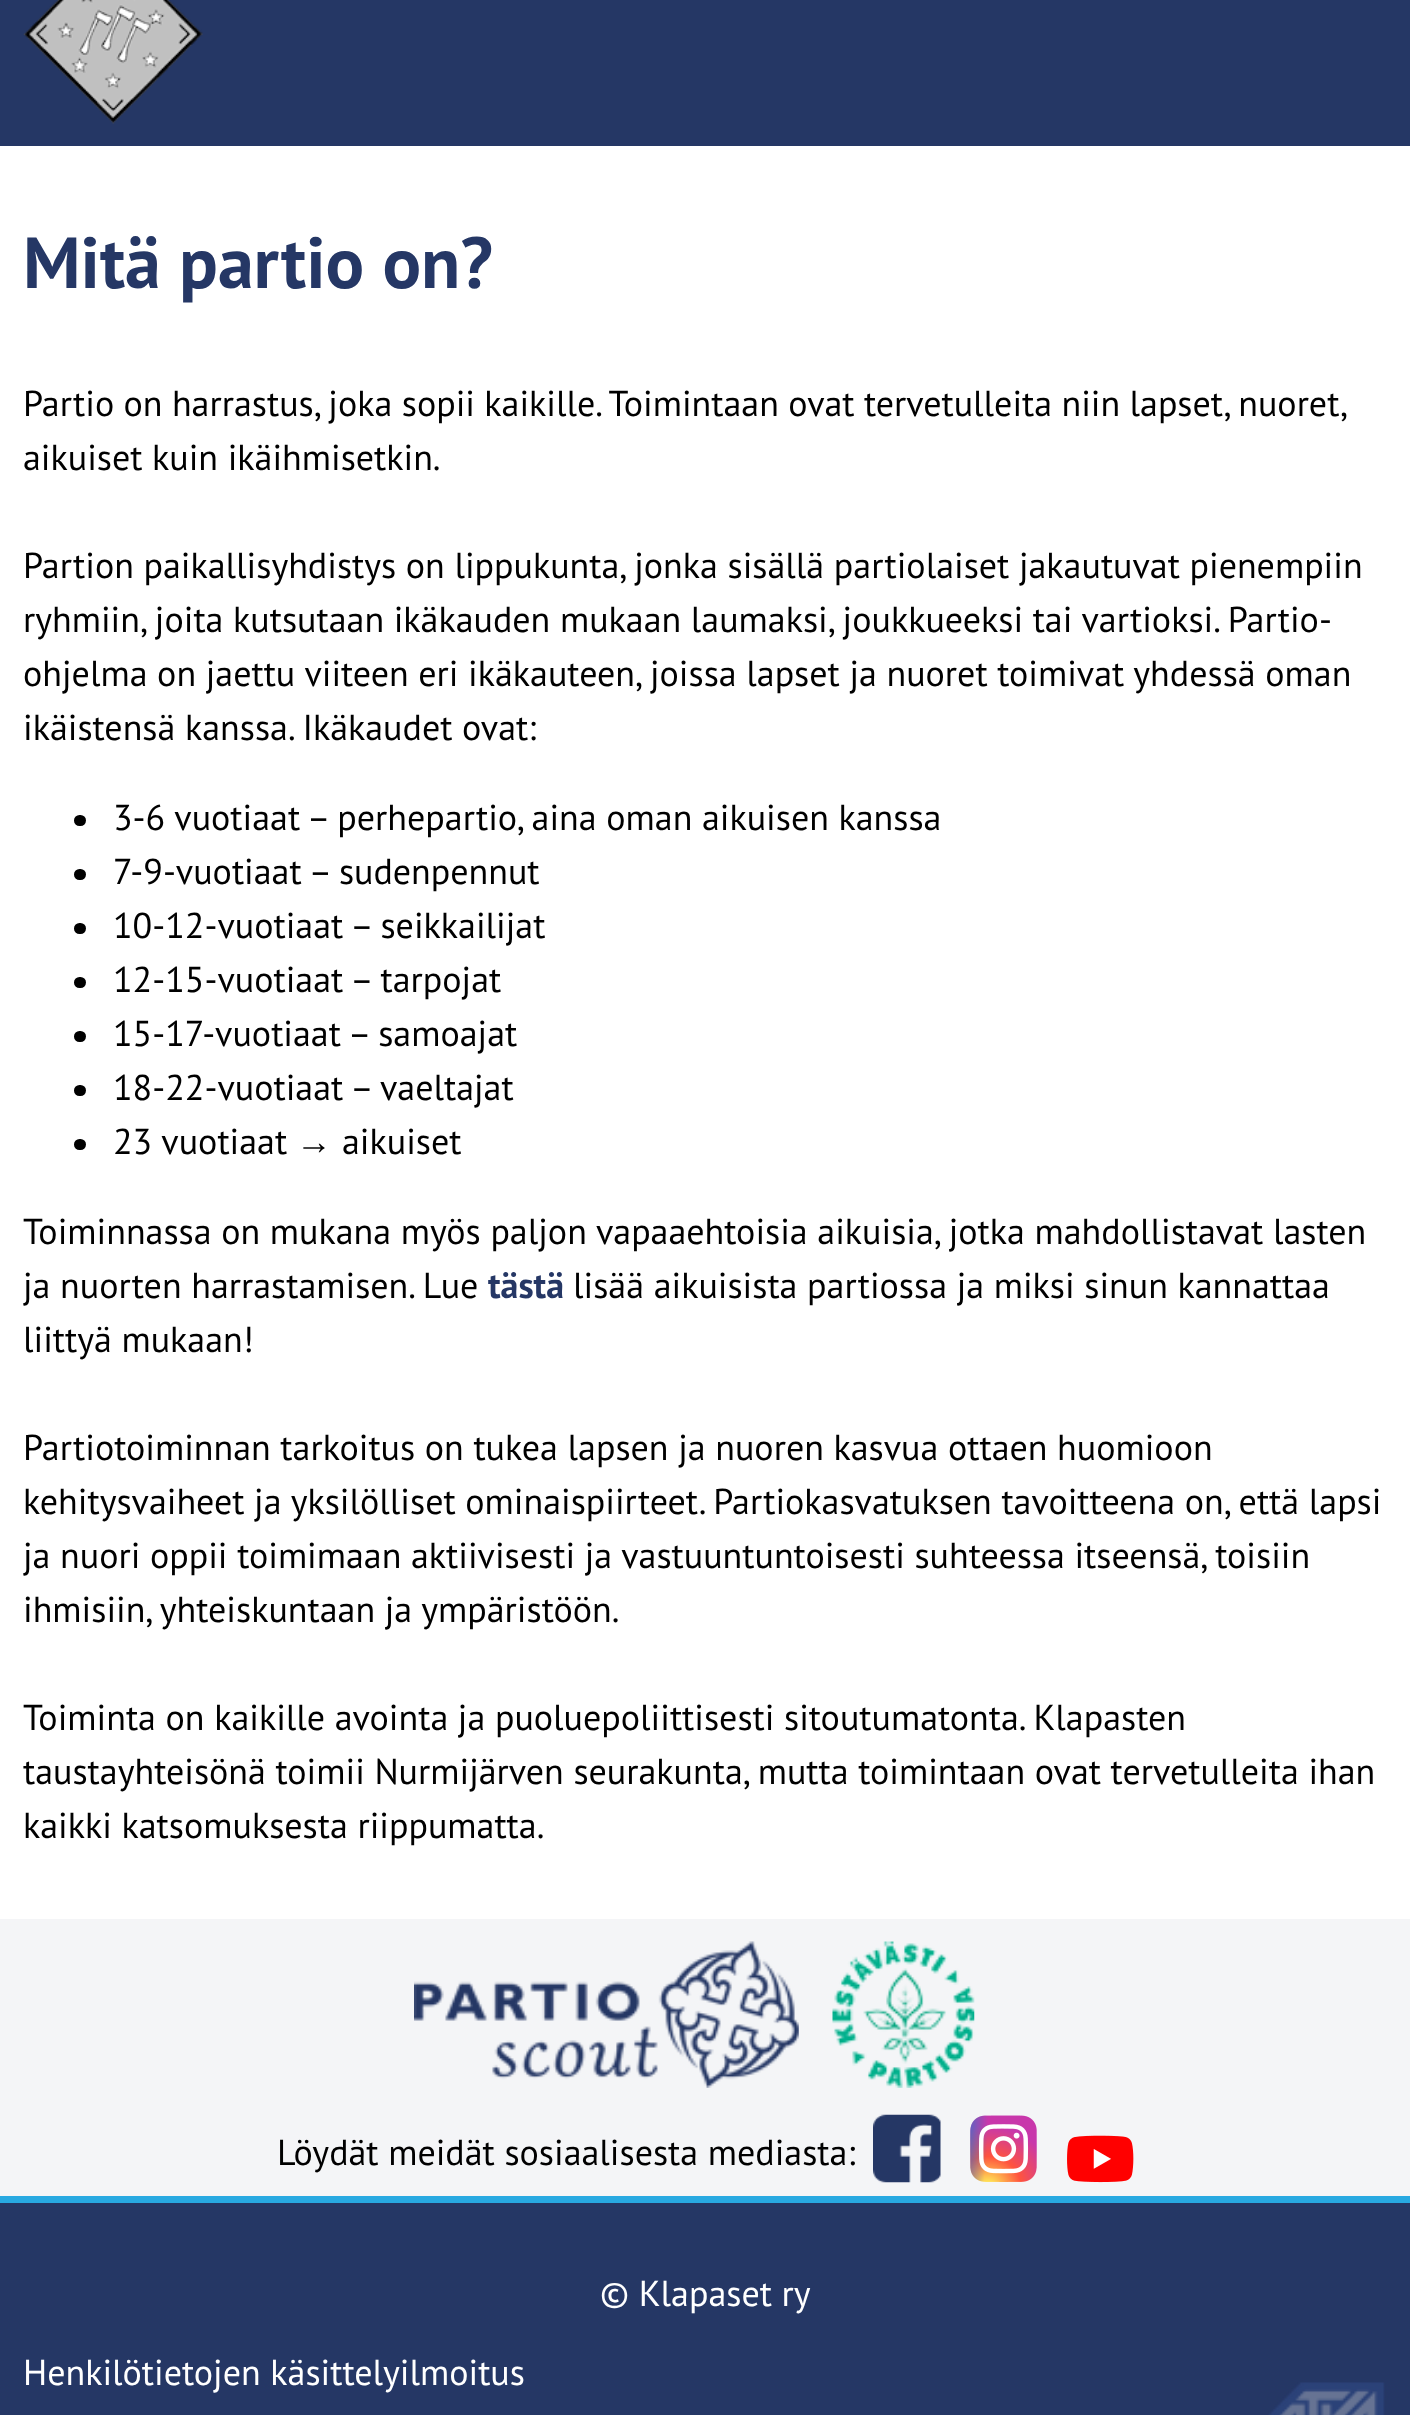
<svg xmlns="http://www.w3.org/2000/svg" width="1410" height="2415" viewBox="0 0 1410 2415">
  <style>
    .t1 { font: bold 72px PT Sans; fill: #253765; }
    .t2 { font: 36px PT Sans; fill: #000; }
    .t3 { font: 36px Liberation Sans; fill: #000; }
    .t4 { font: bold 36px PT Sans; fill: #253765; }
    .t5 { font: 36px PT Sans; fill: #fff; }
  </style>
  <rect width="100%" height="100%" fill="#fff"/>
  <rect x="0" y="0" width="1410" height="146" fill="#253765"/>
  <image x="23" y="0" width="180" height="124" href="images/1.png"/>
  <text x="23" y="288" class="t1">Mitä partio on?</text>
  <text x="23" y="416" word-spacing="-0.25" class="t2">Partio on harrastus, joka sopii kaikille. Toimintaan ovat tervetulleita niin lapset, nuoret,</text>
  <text x="23" y="470" class="t2">aikuiset kuin ikäihmisetkin.</text>
  <text x="23" y="578" class="t2">Partion paikallisyhdistys on lippukunta, jonka sisällä partiolaiset jakautuvat pienempiin</text>
  <text x="23" y="632" class="t2">ryhmiin, joita kutsutaan ikäkauden mukaan laumaksi, joukkueeksi tai vartioksi. Partio-</text>
  <text x="23" y="686" class="t2">ohjelma on jaettu viiteen eri ikäkauteen, joissa lapset ja nuoret toimivat yhdessä oman</text>
  <text x="23" y="740" class="t2">ikäistensä kanssa. Ikäkaudet ovat:</text>
  <rect x="74" y="815" width="12" height="11" rx="5.5" fill="#000"/>
  <text x="113" y="830" class="t2">3-6 vuotiaat – perhepartio, aina oman aikuisen kanssa</text>
  <rect x="74" y="869" width="12" height="11" rx="5.5" fill="#000"/>
  <text x="113" y="884" class="t2">7-9-vuotiaat – sudenpennut</text>
  <rect x="74" y="923" width="12" height="11" rx="5.5" fill="#000"/>
  <text x="113" y="938" class="t2">10-12-vuotiaat – seikkailijat</text>
  <rect x="74" y="977" width="12" height="11" rx="5.5" fill="#000"/>
  <text x="113" y="992" class="t2">12-15-vuotiaat – tarpojat</text>
  <rect x="74" y="1031" width="12" height="11" rx="5.5" fill="#000"/>
  <text x="113" y="1046" class="t2">15-17-vuotiaat – samoajat</text>
  <rect x="74" y="1085" width="12" height="11" rx="5.5" fill="#000"/>
  <text x="113" y="1100" class="t2">18-22-vuotiaat – vaeltajat</text>
  <rect x="74" y="1139" width="12" height="11" rx="5.5" fill="#000"/>
  <text x="113" y="1154" class="t2">23 vuotiaat</text>
  <text x="296" y="1154" class="t3">→</text>
  <text x="342" y="1154" class="t2">aikuiset</text>
  <text x="23" y="1244" class="t2">Toiminnassa on mukana myös paljon vapaaehtoisia aikuisia, jotka mahdollistavat lasten</text>
  <text x="23" y="1298" class="t2">ja nuorten harrastamisen. Lue</text>
  <text x="488" y="1298" class="t4">tästä</text>
  <text x="573" y="1298" class="t2">lisää aikuisista partiossa ja miksi sinun kannattaa</text>
  <text x="23" y="1352" class="t2">liittyä mukaan!</text>
  <text x="23" y="1460" class="t2">Partiotoiminnan tarkoitus on tukea lapsen ja nuoren kasvua ottaen huomioon</text>
  <text x="23" y="1514" class="t2">kehitysvaiheet ja yksilölliset ominaispiirteet. Partiokasvatuksen tavoitteena on, että lapsi</text>
  <text x="23" y="1568" class="t2">ja nuori oppii toimimaan aktiivisesti ja vastuuntuntoisesti suhteessa itseensä, toisiin</text>
  <text x="23" y="1622" class="t2">ihmisiin, yhteiskuntaan ja ympäristöön.</text>
  <text x="23" y="1730" class="t2">Toiminta on kaikille avointa ja puoluepoliittisesti sitoutumatonta. Klapasten</text>
  <text x="23" y="1784" class="t2">taustayhteisönä toimii Nurmijärven seurakunta, mutta toimintaan ovat tervetulleita ihan</text>
  <text x="23" y="1838" class="t2">kaikki katsomuksesta riippumatta.</text>
  <rect x="0" y="1919" width="1410" height="277" fill="#f4f5f7"/>
  <image x="414" y="1941" width="385" height="147" href="images/2.png"/>
  <image x="832" y="1941" width="143" height="147" href="images/3.png"/>
  <text x="277" y="2165" class="t2">Löydät meidät sosiaalisesta mediasta:</text>
  <image x="873" y="2114" width="68" height="69" href="images/4.png"/>
  <image x="970" y="2115" width="67" height="67" href="images/5.png"/>
  <image x="1067" y="2135" width="67" height="48" href="images/6.png"/>
  <rect x="0" y="2203" width="1410" height="212" fill="#253765"/>
  <rect x="0" y="2196" width="1410" height="7" fill="#28a9e1"/>
  <text x="600" y="2306" class="t5">© Klapaset ry</text>
  <text x="23" y="2385" class="t5">Henkilötietojen käsittelyilmoitus</text>
  <image x="1268" y="2382" width="117" height="33" href="images/7.png"/>
</svg>
